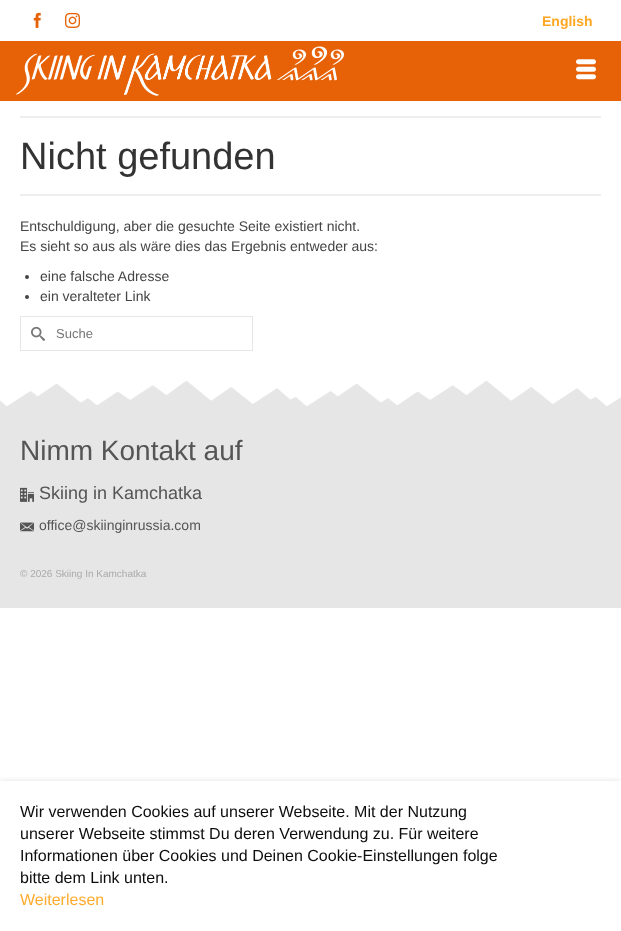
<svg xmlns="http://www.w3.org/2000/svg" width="621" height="931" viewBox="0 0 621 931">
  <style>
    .t1 { font: bold 14px Liberation Sans; fill: #ffa723; }
    .t2 { font: 38px Liberation Sans; fill: #333; }
    .t3 { font: 14px Liberation Sans; fill: #444; }
    .t4 { font: 13px Liberation Sans; fill: #757575; }
    .t5 { font: 28px Liberation Sans; fill: #555; }
    .t6 { font: 18px Liberation Sans; fill: #555; }
    .t7 { font: 14px Liberation Sans; fill: #555; }
    .t8 { font: 10px Liberation Sans; fill: #aaa; }
    .t9 { font: 16px Liberation Sans; fill: #0d0d0d; }
    .t10 { font: 16px Liberation Sans; fill: #ffab2e; }
  </style>
  <defs>
    <clipPath id="clip1"><rect x="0" y="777" width="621" height="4"/></clipPath>
  </defs>
  <rect width="100%" height="100%" fill="#fff"/>
  <image x="33" y="12" width="8" height="16" href="images/1.png"/>
  <image x="65" y="12" width="15" height="16" href="images/2.png"/>
  <text x="542" y="26" class="t1">English</text>
  <rect x="0" y="41" width="621" height="60" fill="#e76106"/>
  <image x="15" y="46" width="329" height="50" href="images/3.png"/>
  <image x="576" y="59" width="20" height="21" href="images/4.png"/>
  <rect x="20" y="116" width="581" height="2" fill="#eee"/>
  <rect x="20" y="194" width="581" height="2" fill="#eee"/>
  <text x="20" y="169" class="t2">Nicht gefunden</text>
  <text x="20" y="231" class="t3">Entschuldigung, aber die gesuchte Seite existiert nicht.</text>
  <text x="20" y="251" class="t3">Es sieht so aus als wäre dies das Ergebnis entweder aus:</text>
  <circle cx="27" cy="277" r="2" fill="#444"/>
  <text x="40" y="281" class="t3">eine falsche Adresse</text>
  <circle cx="27" cy="297" r="2" fill="#444"/>
  <text x="40" y="301" class="t3">ein veralteter Link</text>
  <rect x="20.5" y="316.5" width="232" height="34" fill="none" stroke="#e7e7e7"/>
  <image x="31" y="326" width="14" height="15" href="images/5.png"/>
  <text x="56" y="338" class="t4">Suche</text>
  <rect x="0" y="381" width="621" height="227" fill="#e6e6e6"/>
  <image x="0" y="381" width="621" height="25" href="images/6.png"/>
  <text x="20" y="460" class="t5">Nimm Kontakt auf</text>
  <image x="20" y="487" width="14" height="15" href="images/7.png"/>
  <text x="39" y="499" class="t6">Skiing in Kamchatka</text>
  <image x="20" y="522" width="14" height="10" href="images/8.png"/>
  <text x="39" y="530" class="t7">office@skiinginrussia.com</text>
  <text x="20" y="577" class="t8">© 2026 Skiing In Kamchatka</text>
  <g clip-path="url(#clip1)">
    <rect x="0" y="786" width="621" height="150" fill="#0d0d0d80" filter="blur(5px)"/>
  </g>
  <text x="20" y="817" class="t9">Wir verwenden Cookies auf unserer Webseite. Mit der Nutzung</text>
  <text x="20" y="839" class="t9">unserer Webseite stimmst Du deren Verwendung zu. Für weitere</text>
  <text x="20" y="861" class="t9">Informationen über Cookies und Deinen Cookie-Einstellungen folge</text>
  <text x="20" y="883" class="t9">bitte dem Link unten.</text>
  <text x="20" y="905" class="t10">Weiterlesen</text>
</svg>
